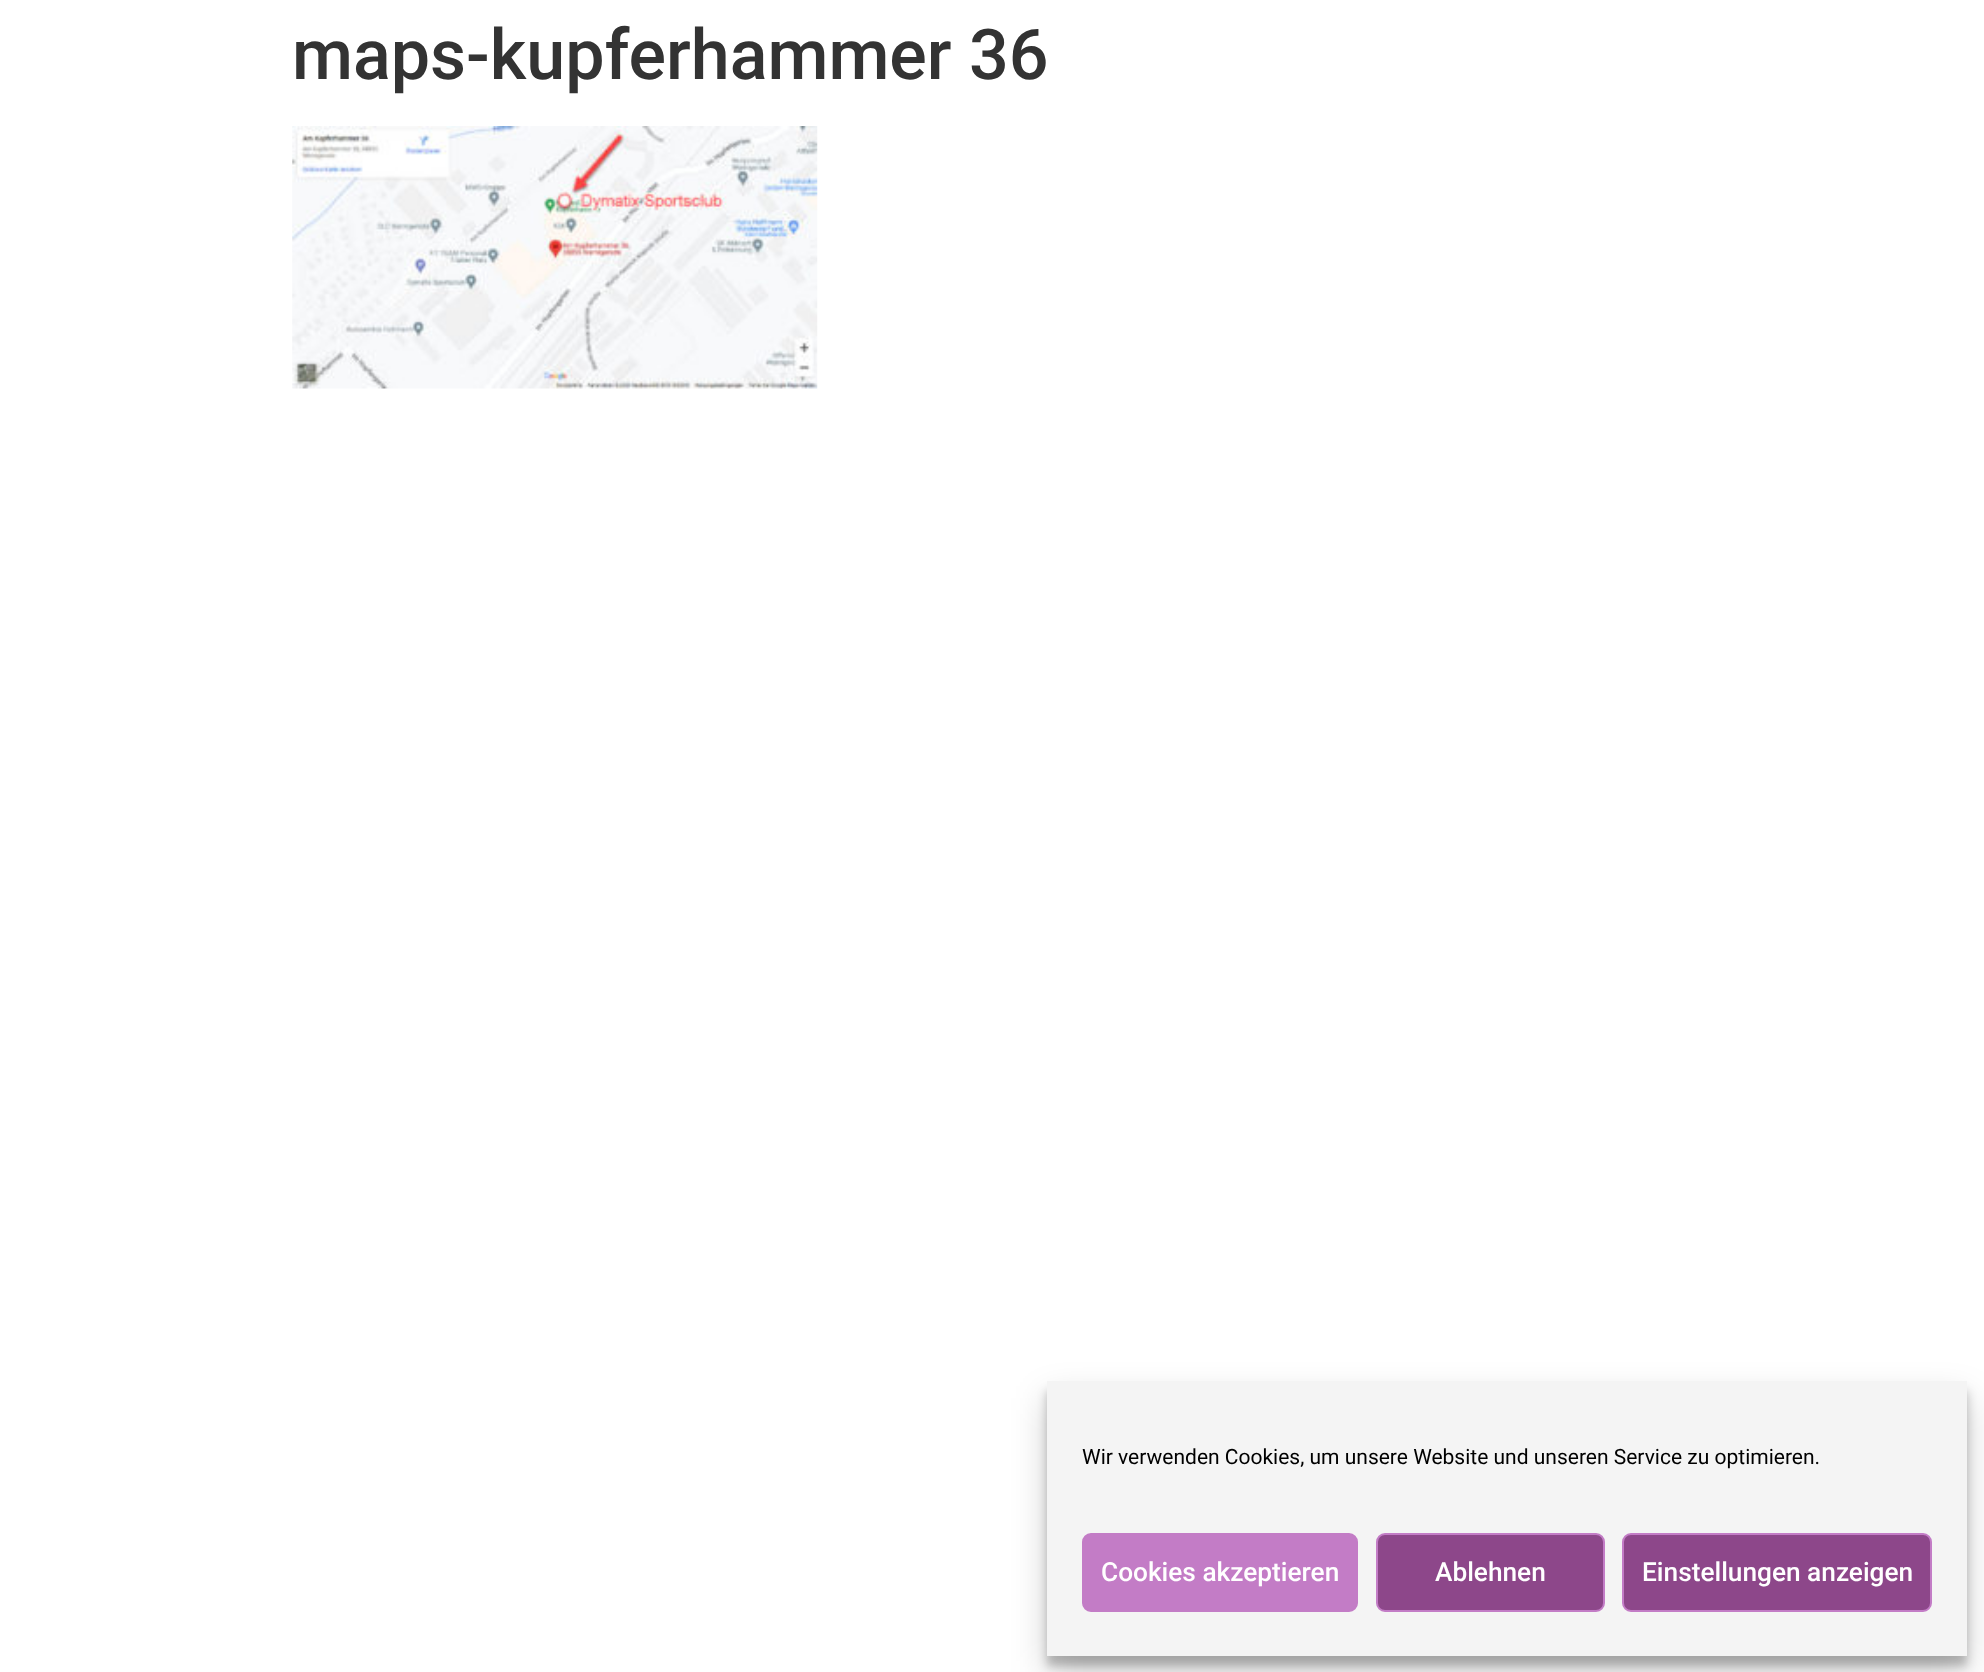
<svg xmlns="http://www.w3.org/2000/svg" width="1984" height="1672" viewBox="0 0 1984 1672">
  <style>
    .t1 { font: 500 70px Roboto; fill: #333; }
    .t2 { font: 21px Roboto; fill: #000; }
    .t3 { font: 500 26.25px Roboto; fill: #fff; }
  </style>
  <rect width="100%" height="100%" fill="#fff"/>
  <text x="292" y="79" class="t1">maps-kupferhammer 36</text>
  <image x="292" y="126" width="526" height="263" href="images/1.png"/>
  <rect x="1047" y="1391" width="920" height="275" fill="#0000003b" filter="blur(5px)"/>
  <rect x="1047" y="1398" width="920" height="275" fill="#00000030" filter="blur(17.5px)"/>
  <rect x="1047" y="1381" width="920" height="275" fill="#f4f4f4"/>
  <text x="1082" y="1464" class="t2">Wir verwenden Cookies, um unsere Website und unseren Service zu optimieren.</text>
  <rect x="1083" y="1534" width="274" height="77" rx="8" fill="#c37cc6" stroke="#c37cc6" stroke-width="2"/>
  <text x="1101" y="1581" class="t3">Cookies akzeptieren</text>
  <rect x="1377" y="1534" width="227" height="77" rx="8" fill="#8d478a" stroke="#c37cc6" stroke-width="2"/>
  <text x="1435" y="1581" class="t3">Ablehnen</text>
  <rect x="1623" y="1534" width="308" height="77" rx="8" fill="#8d478a" stroke="#c37cc6" stroke-width="2"/>
  <text x="1642" y="1581" class="t3">Einstellungen anzeigen</text>
</svg>
